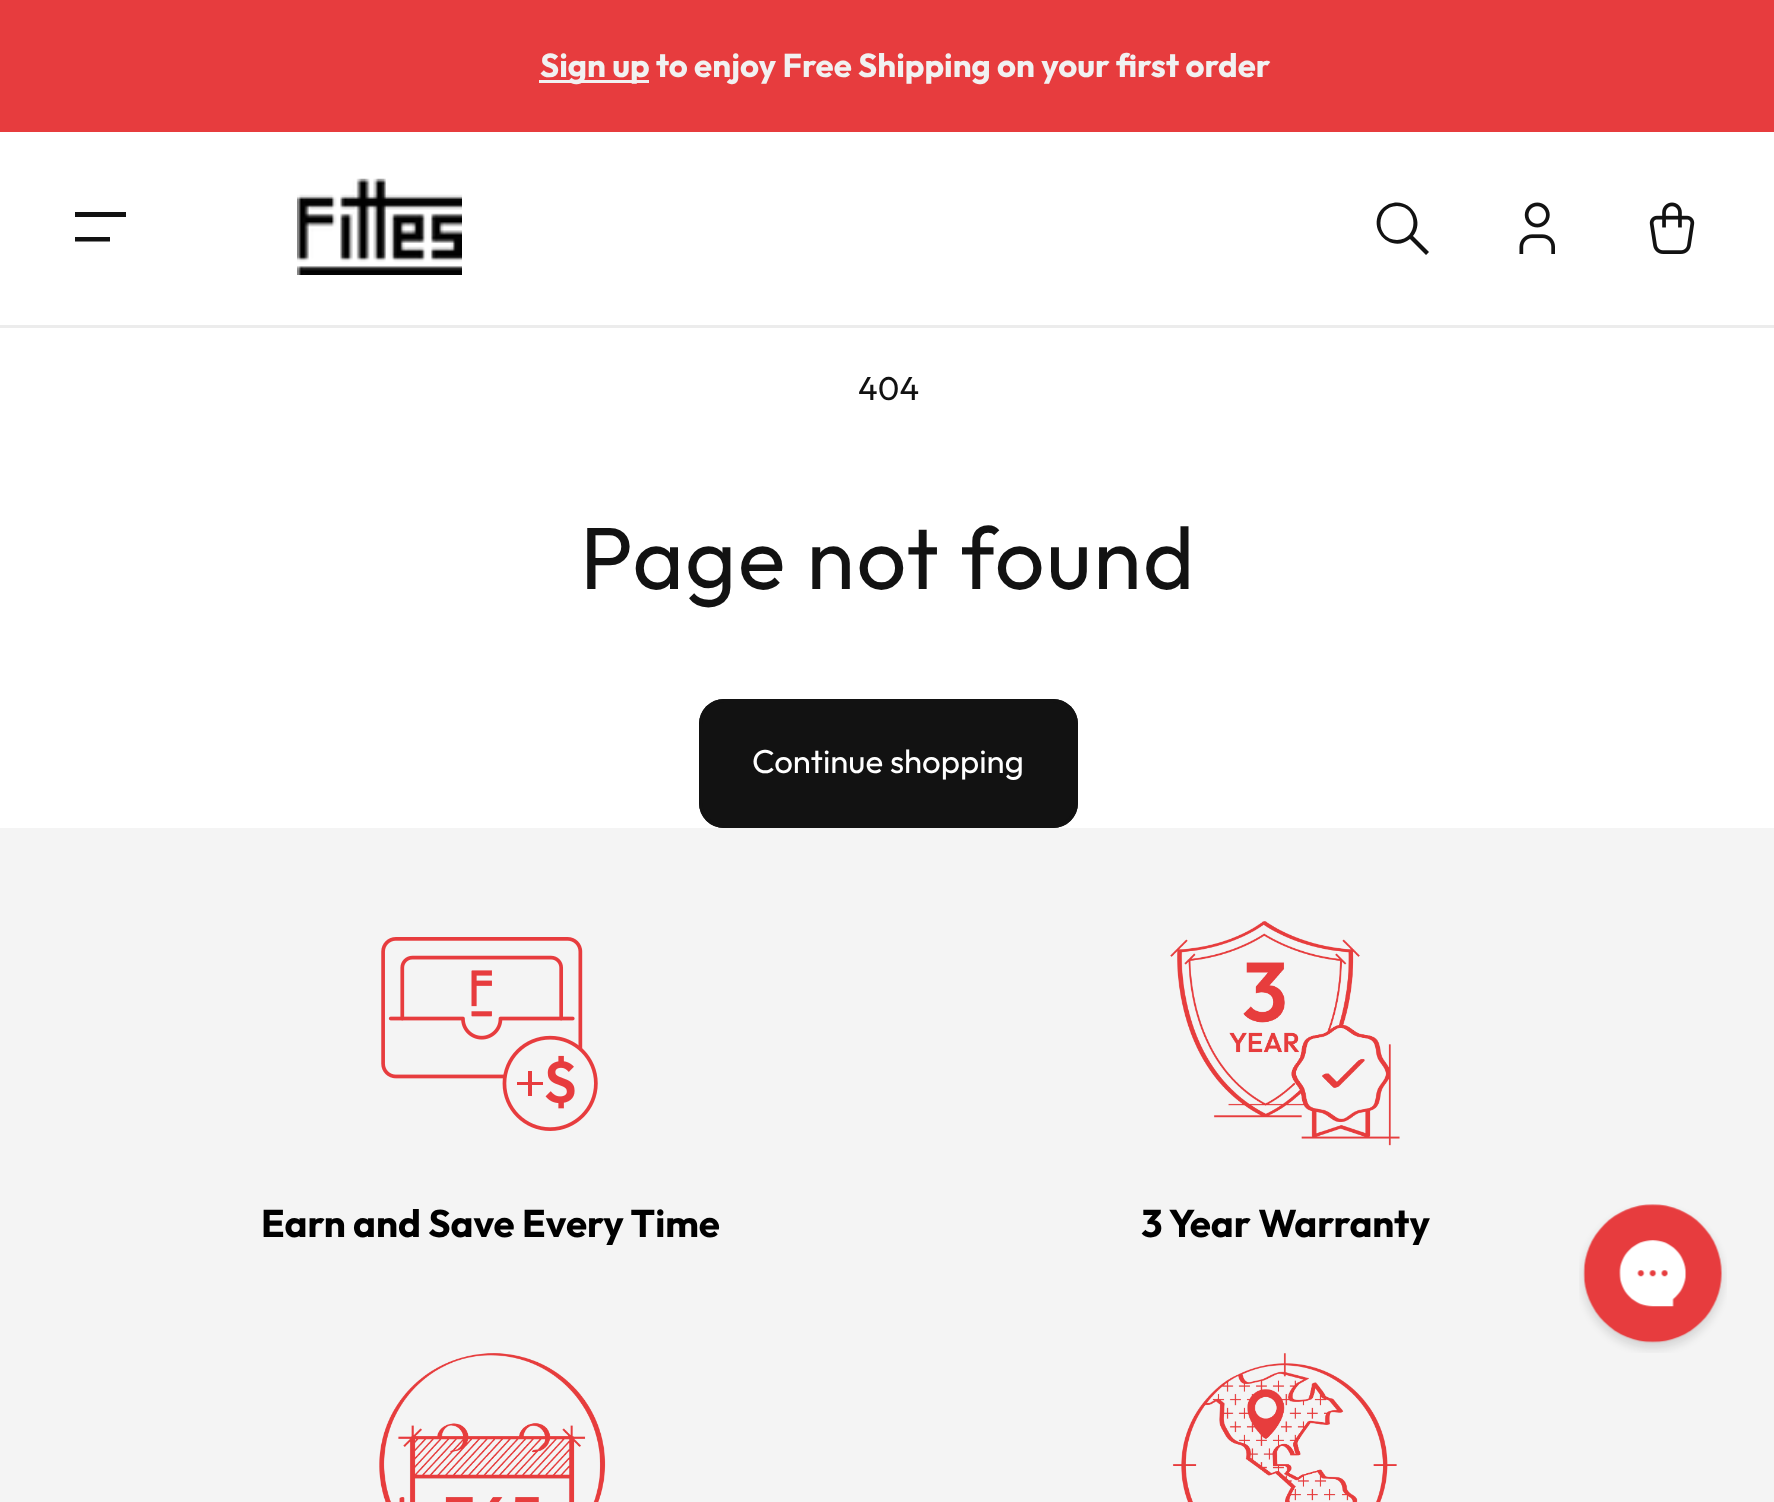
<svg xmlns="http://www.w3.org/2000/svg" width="1774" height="1502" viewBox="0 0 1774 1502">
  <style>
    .t1 { font: bold 33px Outfit; fill: #f1f1f1; }
    .t2 { font: 33px Outfit; fill: #121212; }
    .t3 { font: 88px Outfit; letter-spacing: 1.6px; fill: #121212; }
    .t4 { font: 33px Outfit; fill: #fff; }
    .t5 { font: bold 38.5px Outfit; fill: #000; }
  </style>
  <rect width="100%" height="100%" fill="#fff"/>
  <rect x="0" y="0" width="1774" height="132" fill="#e73c3e"/>
  <rect x="539" y="80" width="110" height="3" fill="#f1f1f1"/>
  <text x="540" y="77" class="t1">Sign up to enjoy Free Shipping on your first order</text>
  <rect x="0" y="325" width="1774" height="3" fill="#ececec"/>
  <path d="M77 212H75V217H77ZM77 217H126V212H77ZM77 237H75V241.5H77ZM77 241.5H110V237H77Z" fill="#121212"/>
  <image x="297" y="178" width="165" height="97" href="images/1.png"/>
  <path d="M1389 204C1409 196 1426 220 1413 236L1429 252L1426 255L1410 239C1393 253 1369 233 1379 213C1381 209 1385 206 1389 204ZM1397 206C1375 206 1375 240 1397 240C1419 240 1419 206 1397 206Z" fill="#121212" fill-rule="evenodd"/>
  <image x="1519" y="202" width="36" height="52" href="images/2.png"/>
  <image x="1649" y="202" width="46" height="52" href="images/3.png"/>
  <text x="858" y="400" class="t2">404</text>
  <text x="580" y="589" class="t3">Page not found</text>
  <rect x="699" y="699" width="379" height="129" rx="25" fill="#121212"/>
  <rect x="700.5" y="700.5" width="376" height="126" rx="23.5" fill="none" stroke="#121212" stroke-width="3"/>
  <text x="752" y="773" class="t4">Continue shopping</text>
  <rect x="0" y="828" width="1774" height="674" fill="#f4f4f4"/>
  <image x="381" y="937" width="217" height="194" href="images/4.png"/>
  <text x="261" y="1237" class="t5">Earn and Save Every Time</text>
  <image x="1170" y="921" width="230" height="225" href="images/5.png"/>
  <text x="1141" y="1237" class="t5">3 Year Warranty</text>
  <image x="379" y="1353" width="227" height="149" href="images/6.png"/>
  <image x="1172" y="1353" width="225" height="149" href="images/7.png"/>
  <image x="1579" y="1204" width="148" height="149" href="images/8.png"/>
</svg>
